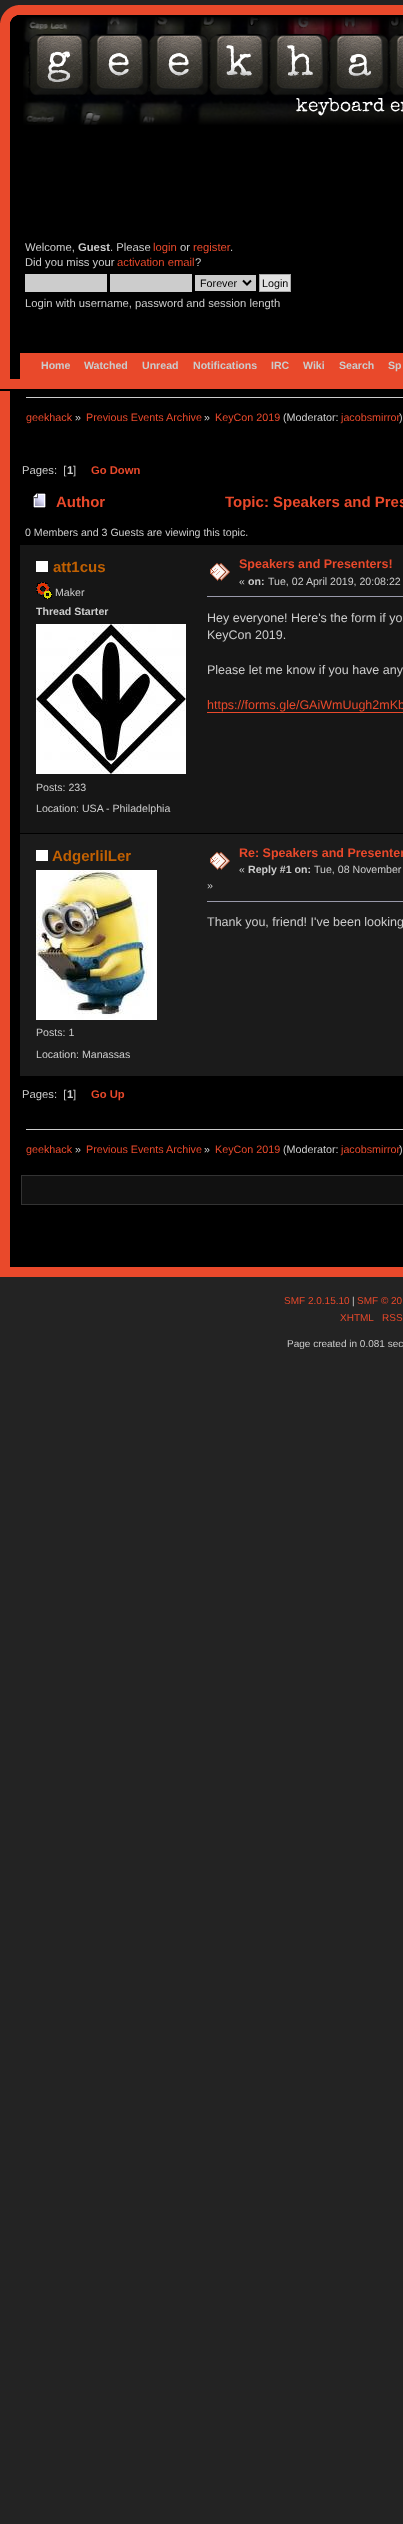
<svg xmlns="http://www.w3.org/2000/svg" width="403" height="2524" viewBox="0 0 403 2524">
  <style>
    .t1 { font: 11.25px Liberation Sans; fill: #ccc; }
    .t2 { font: bold 11.25px Liberation Sans; fill: #ccc; }
    .t3 { font: 11.25px Liberation Sans; fill: #e9492b; }
    .t4 { font: 10.75px Liberation Sans; fill: #000; }
    .t5 { font: bold 10.6px Liberation Sans; fill: #ccc; }
    .t6 { font: 10.75px Liberation Sans; fill: #e9492b; }
    .t7 { font: 10.75px Liberation Sans; fill: #ccc; }
    .t8 { font: bold 11.25px Liberation Sans; fill: #e9492b; }
    .t9 { font: bold 15px Liberation Sans; fill: #e9492b; }
    .t10 { font: 10.6px Liberation Sans; fill: #ccc; }
    .t11 { font: bold 15px Liberation Sans; fill: #c06002; }
    .t12 { font: bold 12.5px Liberation Sans; fill: #e9492b; }
    .t13 { font: 12.5px Liberation Sans; fill: #ccc; }
    .t14 { font: 12.5px Liberation Sans; fill: #e9492b; }
    .t15 { font: 10px Liberation Sans; fill: #e9492b; }
    .t16 { font: 10px Liberation Sans; fill: #ccc; }
  </style>
  <rect width="100%" height="100%" fill="#232323"/>
  <rect x="0" y="389" width="403" height="2" fill="#000"/>
  <image x="0" y="5" width="403" height="384" href="images/1.png"/>
  <image x="23" y="17" width="380" height="108" href="images/2.png"/>
  <image x="28" y="27" width="375" height="89" href="images/3.png"/>
  <text x="25" y="251" class="t1">Welcome,</text>
  <text x="78" y="251" class="t2">Guest</text>
  <text x="110" y="251" class="t1">. Please</text>
  <text x="153" y="251" class="t3">login</text>
  <text x="180" y="251" class="t1">or</text>
  <text x="193" y="251" class="t3">register</text>
  <text x="230" y="251" class="t1">.</text>
  <text x="25" y="266" class="t1">Did you miss your</text>
  <text x="117" y="266" class="t3">activation email</text>
  <text x="195" y="266" class="t1">?</text>
  <rect x="25" y="274" width="82" height="18" fill="#ccc"/>
  <rect x="110" y="274" width="82" height="18" fill="#ccc"/>
  <rect x="195" y="275" width="61" height="16" fill="#ccc"/>
  <path d="M243 280.5L247 284.5L251 280.5" fill="none" stroke="#000" stroke-width="2"/>
  <text x="200" y="287" class="t4">Forever</text>
  <rect x="259.5" y="274.5" width="31" height="17" fill="#e2e2e2" stroke="#a8a8a8"/>
  <text x="262" y="287" class="t4">Login</text>
  <text x="25" y="307" class="t1">Login with username, password and session length</text>
  <rect x="20" y="353" width="383" height="26" fill="#e9492b"/>
  <text x="41" y="369" class="t5">Home</text>
  <text x="84" y="369" class="t5">Watched</text>
  <text x="142" y="369" class="t5">Unread</text>
  <text x="193" y="369" class="t5">Notifications</text>
  <text x="271" y="369" class="t5">IRC</text>
  <text x="303" y="369" class="t5">Wiki</text>
  <text x="339" y="369" class="t5">Search</text>
  <text x="388" y="369" class="t5">Sp</text>
  <rect x="10" y="391" width="393" height="842" fill="#000"/>
  <rect x="0" y="391" width="10" height="842" fill="#e9492b"/>
  <rect x="26" y="397" width="377" height="1" fill="#ccc"/>
  <text x="26" y="421" class="t6">geekhack</text>
  <text x="75" y="421" class="t7">»</text>
  <text x="86" y="421" class="t6">Previous Events Archive</text>
  <text x="204" y="421" class="t7">»</text>
  <text x="215" y="421" class="t6">KeyCon 2019</text>
  <text x="283" y="421" class="t7">(Moderator:</text>
  <text x="341" y="421" class="t6">jacobsmirror</text>
  <text x="399" y="421" class="t7">)</text>
  <text x="22" y="474" class="t1" xml:space="preserve">Pages:  [</text>
  <text x="67" y="474" class="t2">1</text>
  <text x="73" y="474" class="t1">]</text>
  <text x="91" y="474" class="t8">Go Down</text>
  <image x="33" y="493" width="13" height="15" href="images/4.png"/>
  <text x="56" y="507" class="t9">Author</text>
  <text x="225" y="507" class="t9">Topic: Speakers and Pres</text>
  <text x="25" y="536" class="t10">0 Members and 3 Guests are viewing this topic.</text>
  <rect x="20" y="545" width="383" height="288" fill="#161616"/>
  <rect x="36" y="561" width="12" height="11" fill="#fff"/>
  <text x="53" y="572" class="t11">att1cus</text>
  <image x="36" y="582" width="16" height="17" href="images/5.png"/>
  <text x="55" y="596" class="t10">Maker</text>
  <text x="36" y="615" class="t5">Thread Starter</text>
  <image x="36" y="624" width="150" height="150" href="images/6.png"/>
  <text x="36" y="791" class="t10">Posts: 233</text>
  <text x="36" y="812" class="t10">Location: USA - Philadelphia</text>
  <image x="210" y="563" width="20" height="18" href="images/7.png"/>
  <text x="239" y="568" class="t12">Speakers and Presenters!</text>
  <text x="239" y="585" class="t10">«</text>
  <text x="248" y="585" class="t5">on:</text>
  <text x="268" y="585" class="t10">Tue, 02 April 2019, 20:08:22</text>
  <rect x="207" y="596" width="196" height="1" fill="#99a"/>
  <text x="207" y="622" class="t13">Hey everyone! Here's the form if yo</text>
  <text x="207" y="639" class="t13">KeyCon 2019.</text>
  <text x="207" y="674" class="t13">Please let me know if you have any</text>
  <text x="207" y="709" class="t14">https://forms.gle/GAiWmUugh2mKb</text>
  <rect x="207" y="712" width="196" height="1" fill="#e9492b"/>
  <rect x="20" y="834" width="383" height="242" fill="#1b1b1b"/>
  <rect x="36" y="850" width="12" height="11" fill="#fff"/>
  <text x="52" y="861" class="t11">AdgerlilLer</text>
  <image x="36" y="870" width="121" height="150" href="images/8.png"/>
  <text x="36" y="1036" class="t10">Posts: 1</text>
  <text x="36" y="1058" class="t10">Location: Manassas</text>
  <image x="210" y="852" width="20" height="18" href="images/9.png"/>
  <text x="239" y="857" class="t12">Re: Speakers and Presenter</text>
  <text x="239" y="873" class="t10">«</text>
  <text x="248" y="873" class="t5">Reply #1 on:</text>
  <text x="314" y="873" class="t10">Tue, 08 November</text>
  <text x="207" y="889" class="t10">»</text>
  <rect x="207" y="901" width="196" height="1" fill="#99a"/>
  <text x="207" y="926" class="t13">Thank you, friend! I've been looking</text>
  <text x="22" y="1098" class="t1" xml:space="preserve">Pages:  [</text>
  <text x="67" y="1098" class="t2">1</text>
  <text x="73" y="1098" class="t1">]</text>
  <text x="91" y="1098" class="t8">Go Up</text>
  <rect x="26" y="1129" width="377" height="1" fill="#ccc"/>
  <text x="26" y="1153" class="t6">geekhack</text>
  <text x="75" y="1153" class="t7">»</text>
  <text x="86" y="1153" class="t6">Previous Events Archive</text>
  <text x="204" y="1153" class="t7">»</text>
  <text x="215" y="1153" class="t6">KeyCon 2019</text>
  <text x="283" y="1153" class="t7">(Moderator:</text>
  <text x="341" y="1153" class="t6">jacobsmirror</text>
  <text x="399" y="1153" class="t7">)</text>
  <rect x="21.5" y="1175.5" width="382" height="29" fill="#111" stroke="#333"/>
  <image x="0" y="1233" width="403" height="44" href="images/10.png"/>
  <text x="284" y="1304" class="t15">SMF 2.0.15.10</text>
  <text x="352" y="1304" class="t16">|</text>
  <text x="357" y="1304" class="t15">SMF © 20</text>
  <text x="340" y="1321" class="t15">XHTML</text>
  <text x="382" y="1321" class="t15">RSS</text>
  <text x="287" y="1347" class="t16">Page created in 0.081 sec</text>
</svg>
